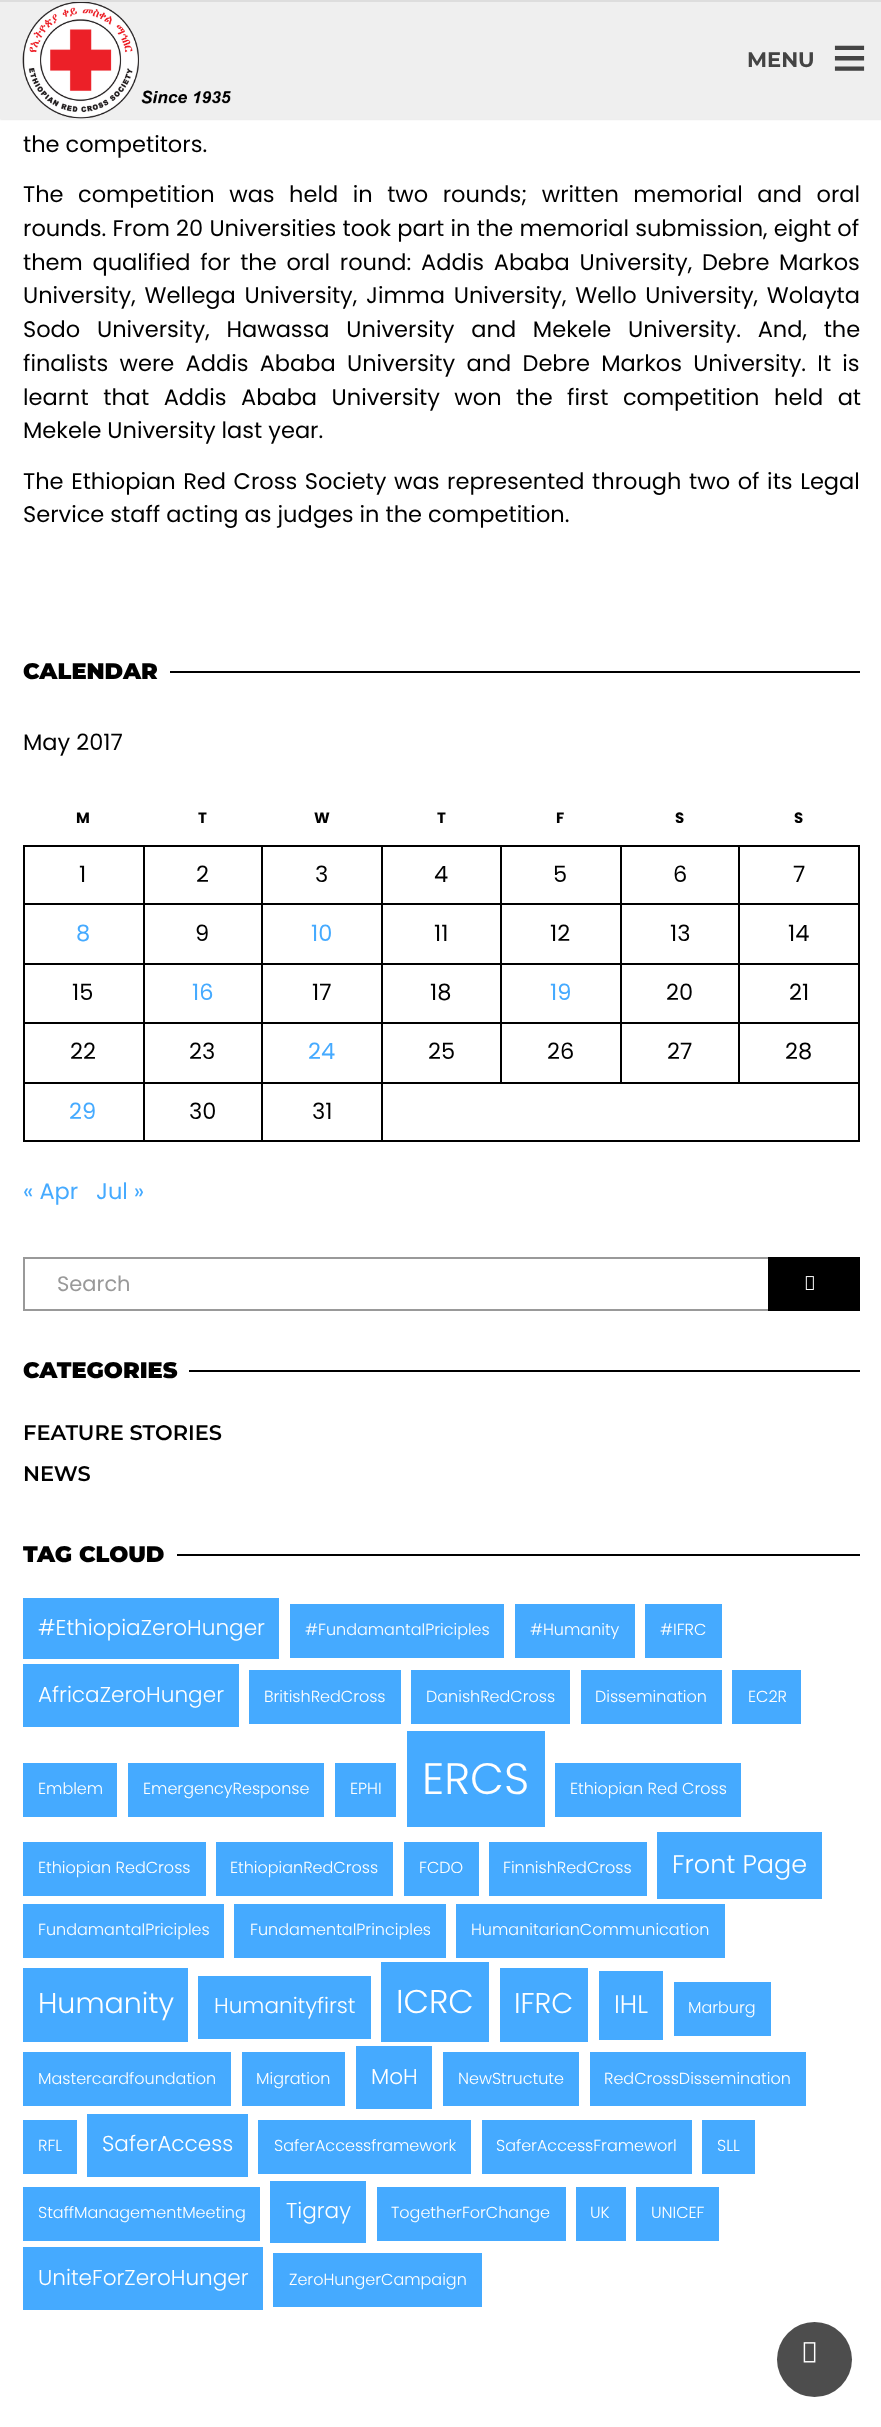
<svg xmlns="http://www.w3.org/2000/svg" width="881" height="2427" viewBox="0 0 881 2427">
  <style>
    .t1 { font: bold 21px Montserrat; fill: #444; }
    .t2 { font: bold 60px Liberation Sans; fill: #444; }
    .t3 { font: 22.5px Poppins; fill: #000; }
    .t4 { font: 900 22.5px Montserrat; fill: #000; }
    .t5 { font: bold 15px Poppins; fill: #000; }
    .t6 { font: 22.5px Poppins; fill: #45aaff; }
    .t7 { font: 21px Poppins; fill: #999; }
    .t8 { font: 600 21px Montserrat; fill: #000; }
    .t9 { font: 300 21.6px Poppins; fill: #fff; }
    .t10 { font: 300 16px Poppins; fill: #fff; }
    .t11 { font: 300 44px Poppins; fill: #fff; }
    .t12 { font: 300 25.5px Poppins; fill: #fff; }
    .t13 { font: 300 28.5px Poppins; fill: #fff; }
    .t14 { font: 300 33px Poppins; fill: #fff; }
  </style>
  <defs>
    <clipPath id="clip1"><rect x="23" y="1542" width="837" height="26"/></clipPath>
  </defs>
  <rect width="100%" height="100%" fill="#fff"/>
  <rect x="0" y="0" width="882" height="119" fill="#00000033" filter="blur(1px)"/>
  <rect x="0" y="2" width="881" height="117" fill="#efefef"/>
  <rect x="0" y="0" width="881" height="2" fill="#ddd"/>
  <image x="22" y="2" width="209" height="117" href="images/1.png"/>
  <text x="747" y="67" class="t1">MENU</text>
  <text x="832" y="78" class="t2">≡</text>
  <text x="23" y="152" class="t3">the competitors.</text>
  <text x="23" y="202" word-spacing="8.5" class="t3">The competition was held in two rounds; written memorial and oral</text>
  <text x="23" y="236" word-spacing="0.25" class="t3">rounds. From 20 Universities took part in the memorial submission, eight of</text>
  <text x="23" y="270" word-spacing="3.75" class="t3">them qualified for the oral round: Addis Ababa University, Debre Markos</text>
  <text x="23" y="303" word-spacing="2.75" class="t3">University, Wellega University, Jimma University, Wello University, Wolayta</text>
  <text x="23" y="337" word-spacing="10.75" class="t3">Sodo University, Hawassa University and Mekele University. And, the</text>
  <text x="23" y="371" word-spacing="5.25" class="t3">finalists were Addis Ababa University and Debre Markos University. It is</text>
  <text x="23" y="405" word-spacing="8.5" class="t3">learnt that Addis Ababa University won the first competition held at</text>
  <text x="23" y="438" class="t3">Mekele University last year.</text>
  <text x="23" y="489" word-spacing="1.6" class="t3">The Ethiopian Red Cross Society was represented through two of its Legal</text>
  <text x="23" y="522" class="t3">Service staff acting as judges in the competition.</text>
  <text x="23" y="679" class="t4">CALENDAR</text>
  <rect x="170" y="671" width="690" height="2" fill="#000"/>
  <text x="23" y="750" class="t3">May 2017</text>
  <text x="76" y="823" class="t5">M</text>
  <text x="198" y="823" class="t5">T</text>
  <text x="314" y="823" class="t5">W</text>
  <text x="437" y="823" class="t5">T</text>
  <text x="556" y="823" class="t5">F</text>
  <text x="675" y="823" class="t5">S</text>
  <text x="794" y="823" class="t5">S</text>
  <rect x="738" y="845" width="122" height="2" fill="#000"/>
  <rect x="738" y="903" width="122" height="2" fill="#000"/>
  <rect x="738" y="963" width="122" height="2" fill="#000"/>
  <rect x="738" y="1022" width="122" height="2" fill="#000"/>
  <rect x="381" y="1082" width="479" height="2" fill="#000"/>
  <rect x="738" y="1022" width="2" height="61" fill="#000"/>
  <rect x="620" y="1022" width="120" height="2" fill="#000"/>
  <rect x="738" y="963" width="2" height="60" fill="#000"/>
  <rect x="620" y="963" width="120" height="2" fill="#000"/>
  <rect x="738" y="903" width="2" height="62" fill="#000"/>
  <rect x="620" y="903" width="120" height="2" fill="#000"/>
  <rect x="738" y="845" width="2" height="60" fill="#000"/>
  <rect x="620" y="845" width="120" height="2" fill="#000"/>
  <rect x="620" y="1022" width="2" height="61" fill="#000"/>
  <rect x="500" y="1022" width="121" height="2" fill="#000"/>
  <rect x="620" y="963" width="2" height="60" fill="#000"/>
  <rect x="500" y="963" width="121" height="2" fill="#000"/>
  <rect x="620" y="903" width="2" height="62" fill="#000"/>
  <rect x="500" y="903" width="121" height="2" fill="#000"/>
  <rect x="620" y="845" width="2" height="60" fill="#000"/>
  <rect x="500" y="845" width="121" height="2" fill="#000"/>
  <rect x="500" y="1022" width="2" height="61" fill="#000"/>
  <rect x="381" y="1022" width="120" height="2" fill="#000"/>
  <rect x="500" y="963" width="2" height="60" fill="#000"/>
  <rect x="381" y="963" width="120" height="2" fill="#000"/>
  <rect x="500" y="903" width="2" height="62" fill="#000"/>
  <rect x="381" y="903" width="120" height="2" fill="#000"/>
  <rect x="500" y="845" width="2" height="60" fill="#000"/>
  <rect x="381" y="845" width="120" height="2" fill="#000"/>
  <rect x="858" y="1082" width="2" height="60" fill="#000"/>
  <rect x="381" y="1140" width="479" height="2" fill="#000"/>
  <rect x="381" y="1082" width="2" height="60" fill="#000"/>
  <rect x="261" y="1082" width="122" height="2" fill="#000"/>
  <rect x="381" y="1022" width="2" height="61" fill="#000"/>
  <rect x="261" y="1022" width="122" height="2" fill="#000"/>
  <rect x="381" y="963" width="2" height="60" fill="#000"/>
  <rect x="261" y="963" width="122" height="2" fill="#000"/>
  <rect x="381" y="903" width="2" height="62" fill="#000"/>
  <rect x="261" y="903" width="122" height="2" fill="#000"/>
  <rect x="381" y="845" width="2" height="60" fill="#000"/>
  <rect x="261" y="845" width="122" height="2" fill="#000"/>
  <rect x="261" y="1140" width="122" height="2" fill="#000"/>
  <rect x="261" y="1082" width="2" height="60" fill="#000"/>
  <rect x="143" y="1082" width="120" height="2" fill="#000"/>
  <rect x="261" y="1022" width="2" height="61" fill="#000"/>
  <rect x="143" y="1022" width="120" height="2" fill="#000"/>
  <rect x="261" y="963" width="2" height="60" fill="#000"/>
  <rect x="143" y="963" width="120" height="2" fill="#000"/>
  <rect x="261" y="903" width="2" height="62" fill="#000"/>
  <rect x="143" y="903" width="120" height="2" fill="#000"/>
  <rect x="261" y="845" width="2" height="60" fill="#000"/>
  <rect x="143" y="845" width="120" height="2" fill="#000"/>
  <rect x="143" y="1140" width="120" height="2" fill="#000"/>
  <rect x="143" y="1082" width="2" height="60" fill="#000"/>
  <rect x="23" y="1082" width="121" height="2" fill="#000"/>
  <rect x="143" y="1022" width="2" height="61" fill="#000"/>
  <rect x="23" y="1022" width="121" height="2" fill="#000"/>
  <rect x="143" y="963" width="2" height="60" fill="#000"/>
  <rect x="23" y="963" width="121" height="2" fill="#000"/>
  <rect x="143" y="903" width="2" height="62" fill="#000"/>
  <rect x="23" y="903" width="121" height="2" fill="#000"/>
  <rect x="143" y="845" width="2" height="60" fill="#000"/>
  <rect x="23" y="845" width="121" height="2" fill="#000"/>
  <rect x="23" y="1140" width="121" height="2" fill="#000"/>
  <rect x="23" y="1082" width="2" height="60" fill="#000"/>
  <rect x="23" y="1022" width="2" height="61" fill="#000"/>
  <rect x="23" y="963" width="2" height="60" fill="#000"/>
  <rect x="23" y="903" width="2" height="62" fill="#000"/>
  <rect x="23" y="845" width="2" height="60" fill="#000"/>
  <text x="79" y="882" class="t3">1</text>
  <text x="196" y="882" class="t3">2</text>
  <text x="315" y="882" class="t3">3</text>
  <text x="434" y="882" class="t3">4</text>
  <text x="553" y="882" class="t3">5</text>
  <text x="673" y="882" class="t3">6</text>
  <rect x="858" y="1022" width="2" height="61" fill="#000"/>
  <rect x="858" y="963" width="2" height="60" fill="#000"/>
  <rect x="858" y="903" width="2" height="62" fill="#000"/>
  <rect x="858" y="845" width="2" height="60" fill="#000"/>
  <text x="793" y="882" class="t3">7</text>
  <text x="76" y="941" class="t6">8</text>
  <text x="195" y="941" class="t3">9</text>
  <text x="311" y="941" class="t6">10</text>
  <text x="434" y="941" class="t3">11</text>
  <text x="550" y="941" class="t3">12</text>
  <text x="670" y="941" class="t3">13</text>
  <text x="788" y="941" class="t3">14</text>
  <text x="72" y="1000" class="t3">15</text>
  <text x="192" y="1000" class="t6">16</text>
  <text x="312" y="1000" class="t3">17</text>
  <text x="430" y="1000" class="t3">18</text>
  <text x="550" y="1000" class="t6">19</text>
  <text x="666" y="1000" class="t3">20</text>
  <text x="789" y="1000" class="t3">21</text>
  <text x="70" y="1059" class="t3">22</text>
  <text x="189" y="1059" class="t3">23</text>
  <text x="308" y="1059" class="t6">24</text>
  <text x="428" y="1059" class="t3">25</text>
  <text x="547" y="1059" class="t3">26</text>
  <text x="667" y="1059" class="t3">27</text>
  <text x="785" y="1059" class="t3">28</text>
  <text x="69" y="1119" class="t6">29</text>
  <text x="189" y="1119" class="t3">30</text>
  <text x="312" y="1119" class="t3">31</text>
  <text x="23" y="1199" class="t6">« Apr</text>
  <text x="96" y="1199" class="t6">Jul »</text>
  <rect x="24" y="1258" width="745" height="52" fill="none" stroke="#999" stroke-width="2"/>
  <text x="57" y="1291" class="t7">Search</text>
  <rect x="768" y="1257" width="92" height="54" fill="#000"/>
  <image x="805" y="1276" width="9" height="14" href="images/2.png"/>
  <text x="23" y="1378" class="t4">CATEGORIES</text>
  <rect x="189" y="1370" width="671" height="2" fill="#000"/>
  <text x="23" y="1440" class="t8">FEATURE STORIES</text>
  <text x="23" y="1481" class="t8">NEWS</text>
  <g clip-path="url(#clip1)">
    <text x="23" y="1562" class="t4">TAG CLOUD</text>
  </g>
  <rect x="177" y="1554" width="683" height="2" fill="#000"/>
  <rect x="23" y="1598" width="256" height="61" fill="#45aaff"/>
  <text x="38" y="1635" class="t9">#EthiopiaZeroHunger</text>
  <rect x="290" y="1604" width="214" height="54" fill="#45aaff"/>
  <text x="305" y="1635" class="t10">#FundamantalPriciples</text>
  <rect x="515" y="1604" width="120" height="54" fill="#45aaff"/>
  <text x="530" y="1635" class="t10">#Humanity</text>
  <rect x="645" y="1604" width="77" height="54" fill="#45aaff"/>
  <text x="660" y="1635" class="t10">#IFRC</text>
  <rect x="23" y="1664" width="216" height="63" fill="#45aaff"/>
  <text x="38" y="1702" class="t9">AfricaZeroHunger</text>
  <rect x="249" y="1670" width="152" height="54" fill="#45aaff"/>
  <text x="264" y="1702" class="t10">BritishRedCross</text>
  <rect x="411" y="1670" width="159" height="54" fill="#45aaff"/>
  <text x="426" y="1702" class="t10">DanishRedCross</text>
  <rect x="581" y="1670" width="141" height="54" fill="#45aaff"/>
  <text x="595" y="1702" class="t10">Dissemination</text>
  <rect x="732" y="1670" width="69" height="54" fill="#45aaff"/>
  <text x="748" y="1702" class="t10">EC2R</text>
  <rect x="23" y="1763" width="94" height="54" fill="#45aaff"/>
  <text x="38" y="1794" class="t10">Emblem</text>
  <rect x="128" y="1763" width="196" height="54" fill="#45aaff"/>
  <text x="143" y="1794" class="t10">EmergencyResponse</text>
  <rect x="335" y="1763" width="61" height="54" fill="#45aaff"/>
  <text x="350" y="1794" class="t10">EPHI</text>
  <rect x="407" y="1731" width="138" height="96" fill="#45aaff"/>
  <text x="422" y="1794" class="t11">ERCS</text>
  <rect x="555" y="1763" width="186" height="54" fill="#45aaff"/>
  <text x="570" y="1794" class="t10">Ethiopian Red Cross</text>
  <rect x="23" y="1842" width="183" height="54" fill="#45aaff"/>
  <text x="38" y="1873" class="t10">Ethiopian RedCross</text>
  <rect x="216" y="1842" width="177" height="54" fill="#45aaff"/>
  <text x="230" y="1873" class="t10">EthiopianRedCross</text>
  <rect x="404" y="1842" width="75" height="54" fill="#45aaff"/>
  <text x="419" y="1873" class="t10">FCDO</text>
  <rect x="489" y="1842" width="158" height="54" fill="#45aaff"/>
  <text x="503" y="1873" class="t10">FinnishRedCross</text>
  <rect x="657" y="1832" width="165" height="67" fill="#45aaff"/>
  <text x="672" y="1873" class="t12">Front Page</text>
  <rect x="23" y="1904" width="201" height="54" fill="#45aaff"/>
  <text x="38" y="1935" class="t10">FundamantalPriciples</text>
  <rect x="234" y="1904" width="212" height="54" fill="#45aaff"/>
  <text x="250" y="1935" class="t10">FundamentalPrinciples</text>
  <rect x="456" y="1904" width="269" height="54" fill="#45aaff"/>
  <text x="471" y="1935" class="t10">HumanitarianCommunication</text>
  <rect x="23" y="1968" width="165" height="74" fill="#45aaff"/>
  <text x="38" y="2013" class="t13">Humanity</text>
  <rect x="198" y="1976" width="173" height="63" fill="#45aaff"/>
  <text x="214" y="2013" class="t9">Humanityfirst</text>
  <rect x="381" y="1962" width="108" height="80" fill="#45aaff"/>
  <text x="396" y="2013" class="t14">ICRC</text>
  <rect x="500" y="1968" width="88" height="74" fill="#45aaff"/>
  <text x="514" y="2013" class="t13">IFRC</text>
  <rect x="599" y="1971" width="64" height="69" fill="#45aaff"/>
  <text x="614" y="2013" class="t12">IHL</text>
  <rect x="674" y="1982" width="97" height="54" fill="#45aaff"/>
  <text x="688" y="2013" class="t10">Marburg</text>
  <rect x="23" y="2052" width="208" height="54" fill="#45aaff"/>
  <text x="38" y="2084" class="t10">Mastercardfoundation</text>
  <rect x="242" y="2052" width="103" height="54" fill="#45aaff"/>
  <text x="256" y="2084" class="t10">Migration</text>
  <rect x="356" y="2046" width="76" height="63" fill="#45aaff"/>
  <text x="371" y="2084" class="t9">MoH</text>
  <rect x="443" y="2052" width="136" height="54" fill="#45aaff"/>
  <text x="458" y="2084" class="t10">NewStructute</text>
  <rect x="590" y="2052" width="216" height="54" fill="#45aaff"/>
  <text x="604" y="2084" class="t10">RedCrossDissemination</text>
  <rect x="23" y="2120" width="54" height="54" fill="#45aaff"/>
  <text x="38" y="2151" class="t10">RFL</text>
  <rect x="87" y="2114" width="161" height="63" fill="#45aaff"/>
  <text x="102" y="2151" class="t9">SaferAccess</text>
  <rect x="258" y="2120" width="213" height="54" fill="#45aaff"/>
  <text x="274" y="2151" class="t10">SaferAccessframework</text>
  <rect x="482" y="2120" width="210" height="54" fill="#45aaff"/>
  <text x="496" y="2151" class="t10">SaferAccessFrameworl</text>
  <rect x="702" y="2120" width="53" height="54" fill="#45aaff"/>
  <text x="717" y="2151" class="t10">SLL</text>
  <rect x="23" y="2187" width="237" height="54" fill="#45aaff"/>
  <text x="38" y="2218" class="t10">StaffManagementMeeting</text>
  <rect x="270" y="2181" width="96" height="62" fill="#45aaff"/>
  <text x="286" y="2218" class="t9">Tigray</text>
  <rect x="377" y="2187" width="189" height="54" fill="#45aaff"/>
  <text x="391" y="2218" class="t10">TogetherForChange</text>
  <rect x="576" y="2187" width="50" height="54" fill="#45aaff"/>
  <text x="590" y="2218" class="t10">UK</text>
  <rect x="636" y="2187" width="83" height="54" fill="#45aaff"/>
  <text x="651" y="2218" class="t10">UNICEF</text>
  <rect x="23" y="2247" width="240" height="63" fill="#45aaff"/>
  <text x="38" y="2285" class="t9">UniteForZeroHunger</text>
  <rect x="273" y="2253" width="209" height="54" fill="#45aaff"/>
  <text x="289" y="2285" class="t10">ZeroHungerCampaign</text>
  <circle cx="814.5" cy="2359.5" r="37.5" fill="#4d4d4d"/>
  <image x="803" y="2342" width="13" height="21" href="images/3.png"/>
</svg>
